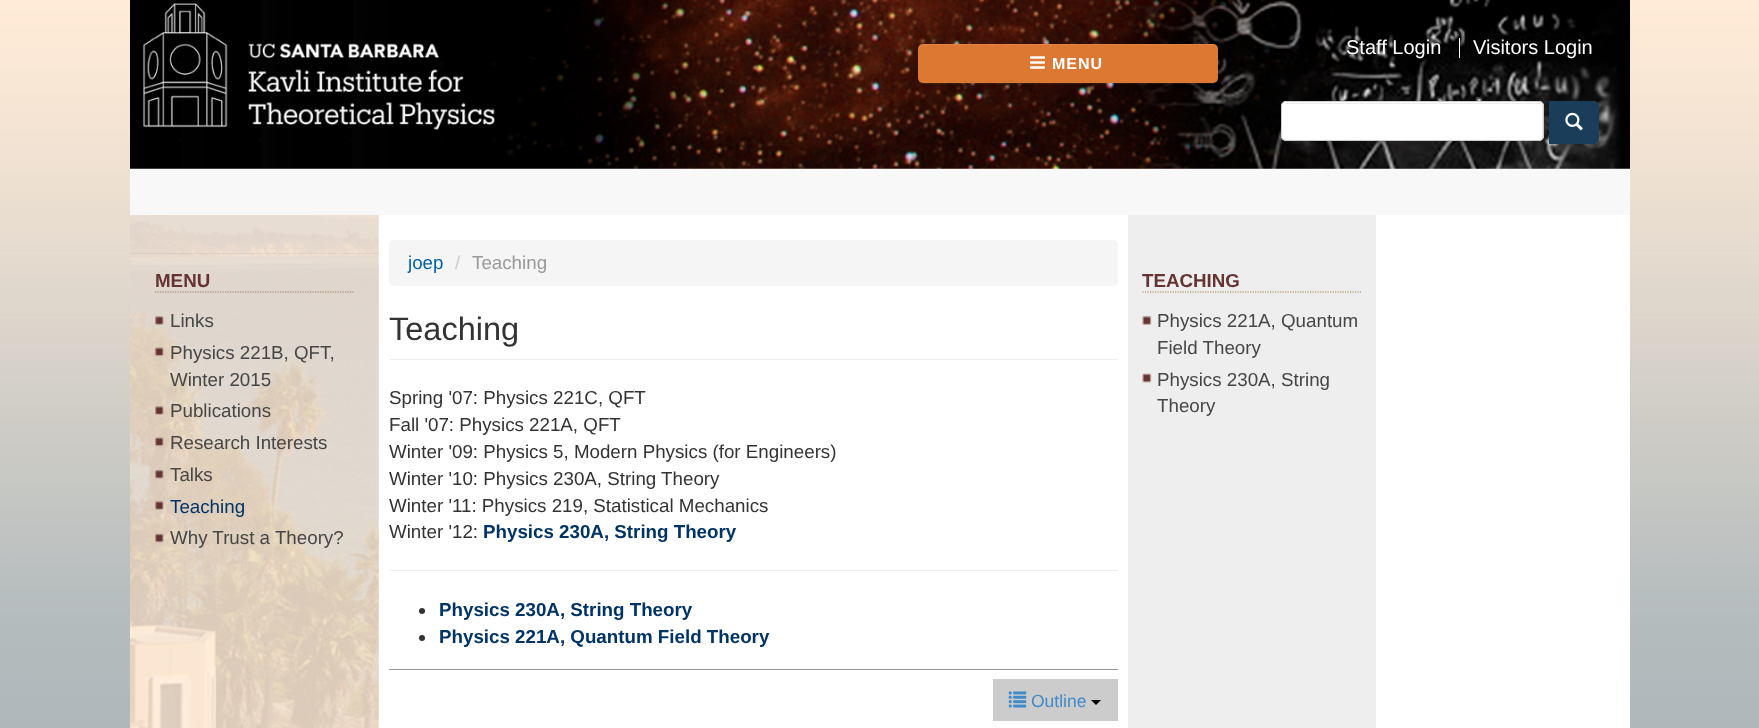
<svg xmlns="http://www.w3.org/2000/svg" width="1759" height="728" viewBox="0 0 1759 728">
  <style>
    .t1 { font: 20px Liberation Sans; fill: #fff; }
    .t2 { font: bold 16px Liberation Sans; letter-spacing: 1px; fill: #fff; }
    .t3 { font: bold 18.75px Liberation Sans; fill: #633; }
    .t4 { font: 18.75px Liberation Sans; fill: #464646; }
    .t5 { font: 18.75px Liberation Sans; fill: #036; }
    .t6 { font: 18.75px Liberation Sans; fill: #0062a7; }
    .t7 { font: 18.75px Liberation Sans; fill: #ccc; }
    .t8 { font: 18.75px Liberation Sans; fill: #999; }
    .t9 { font: 32.5px Liberation Sans; fill: #333; }
    .t10 { font: 18.75px Liberation Sans; fill: #333; }
    .t11 { font: bold 18.75px Liberation Sans; fill: #036; }
    .t12 { font: 17.5px Liberation Sans; fill: #428bca; }
  </style>
  <rect width="100%" height="100%" fill="#fff"/>
  <image x="0" y="0" width="1759" height="728" href="images/1.png"/>
  <rect x="130" y="168" width="1500" height="47" fill="#f8f8f8"/>
  <image x="130" y="0" width="1500" height="169" href="images/2.png"/>
  <image x="143" y="3" width="352" height="127" href="images/3.png"/>
  <text x="1346" y="54" class="t1">Staff Login</text>
  <rect x="1459" y="38" width="1" height="20" fill="#fff"/>
  <text x="1473" y="54" class="t1">Visitors Login</text>
  <rect x="1281" y="101" width="263" height="40" rx="5" fill="#fff"/>
  <path d="M1286 104H1539C1541 104 1542 105 1542 108V139C1543 138 1543 137 1543 136V107C1543 105 1541 103 1539 103H1287C1286 103 1285 104 1284 104Z" fill="#ececec"/>
  <rect x="1281.5" y="101.5" width="262" height="39" rx="4.5" fill="none" stroke="#ccc"/>
  <path d="M1549.5 101.5H1594C1596.5 101.5 1598.5 103.5 1598.5 106V139C1598.5 141.5 1596.5 143.5 1594 143.5H1549.5Z" fill="#1a3d59" stroke="#1a3d59"/>
  <image x="1565" y="112" width="18" height="19" href="images/4.png"/>
  <path d="M918 80C918 82 921 84 923 84H1213C1216 84 1218 82 1218 79V50L1217 48L1218 78C1218 80 1215 82 1212 82H922C921 82 919 81 918 80Z" fill="#ffffff12"/>
  <rect x="918" y="44" width="300" height="39" rx="5" fill="#dd7833"/>
  <path d="M922 45H1212C1215 45 1218 47 1218 50V49C1218 46 1216 44 1213 44H923C920 44 918 46 918 49V50C918 47 920 45 922 45Z" fill="#ffffff1a"/>
  <image x="1030" y="56" width="15" height="13" href="images/5.png"/>
  <text x="1052" y="69" class="t2">MENU</text>
  <rect x="378" y="215" width="1252" height="513" fill="#fff"/>
  <image x="130" y="215" width="249" height="513" href="images/6.png"/>
  <rect x="130" y="253" width="249" height="1" fill="#0000000d"/>
  <path d="M155 292H354" fill="none" stroke="#a67c52" stroke-width="1.2" stroke-dasharray="1.25 1.25"/>
  <text x="155" y="287" class="t3">MENU</text>
  <image x="155" y="316" width="9" height="9" href="images/7.png"/>
  <text x="170" y="327" class="t4">Links</text>
  <image x="155" y="347" width="9" height="10" href="images/8.png"/>
  <text x="170" y="359" class="t4">Physics 221B, QFT,</text>
  <text x="170" y="386" class="t4">Winter 2015</text>
  <image x="155" y="406" width="9" height="9" href="images/9.png"/>
  <text x="170" y="417" class="t4">Publications</text>
  <image x="155" y="437" width="9" height="10" href="images/10.png"/>
  <text x="170" y="449" class="t4">Research Interests</text>
  <image x="155" y="470" width="9" height="9" href="images/11.png"/>
  <text x="170" y="481" class="t4">Talks</text>
  <image x="155" y="501" width="9" height="9" href="images/12.png"/>
  <text x="170" y="513" class="t5">Teaching</text>
  <image x="155" y="533" width="9" height="10" href="images/13.png"/>
  <text x="170" y="544" class="t4">Why Trust a Theory?</text>
  <rect x="389" y="240" width="729" height="46" rx="5" fill="#f5f5f5"/>
  <text x="408" y="269" class="t6">joep</text>
  <text x="455" y="269" class="t7">/</text>
  <text x="472" y="269" class="t8">Teaching</text>
  <rect x="389" y="359" width="729" height="1" fill="#eee"/>
  <text x="389" y="340" class="t9">Teaching</text>
  <text x="389" y="404" class="t10">Spring '07: Physics 221C, QFT</text>
  <text x="389" y="431" class="t10">Fall '07: Physics 221A, QFT</text>
  <text x="389" y="458" class="t10">Winter '09: Physics 5, Modern Physics (for Engineers)</text>
  <text x="389" y="485" class="t10">Winter '10: Physics 230A, String Theory</text>
  <text x="389" y="512" class="t10">Winter '11: Physics 219, Statistical Mechanics</text>
  <text x="389" y="538" class="t10">Winter '12:</text>
  <text x="483" y="538" class="t11">Physics 230A, String Theory</text>
  <rect x="389" y="570" width="729" height="1" fill="#eee"/>
  <circle cx="422" cy="611" r="3" fill="#333"/>
  <text x="439" y="616" class="t11">Physics 230A, String Theory</text>
  <circle cx="422" cy="638" r="3" fill="#333"/>
  <text x="439" y="643" class="t11">Physics 221A, Quantum Field Theory</text>
  <rect x="389" y="669" width="729" height="1" fill="#999"/>
  <rect x="993" y="679" width="125" height="42" fill="#ccc"/>
  <image x="1008" y="691" width="19" height="17" href="images/14.png"/>
  <text x="1031" y="707" class="t12">Outline</text>
  <path d="M1091 700H1101L1096 705Z" fill="#000"/>
  <rect x="1128" y="215" width="248" height="513" fill="#eee"/>
  <path d="M1142.5 292H1361" fill="none" stroke="#a67c52" stroke-width="1.2" stroke-dasharray="1.25 1.25"/>
  <text x="1142" y="287" class="t3">TEACHING</text>
  <image x="1142" y="316" width="10" height="9" href="images/15.png"/>
  <text x="1157" y="327" class="t4">Physics 221A, Quantum</text>
  <text x="1157" y="354" class="t4">Field Theory</text>
  <image x="1142" y="373" width="10" height="10" href="images/16.png"/>
  <text x="1157" y="386" class="t4">Physics 230A, String</text>
  <text x="1157" y="412" class="t4">Theory</text>
</svg>
